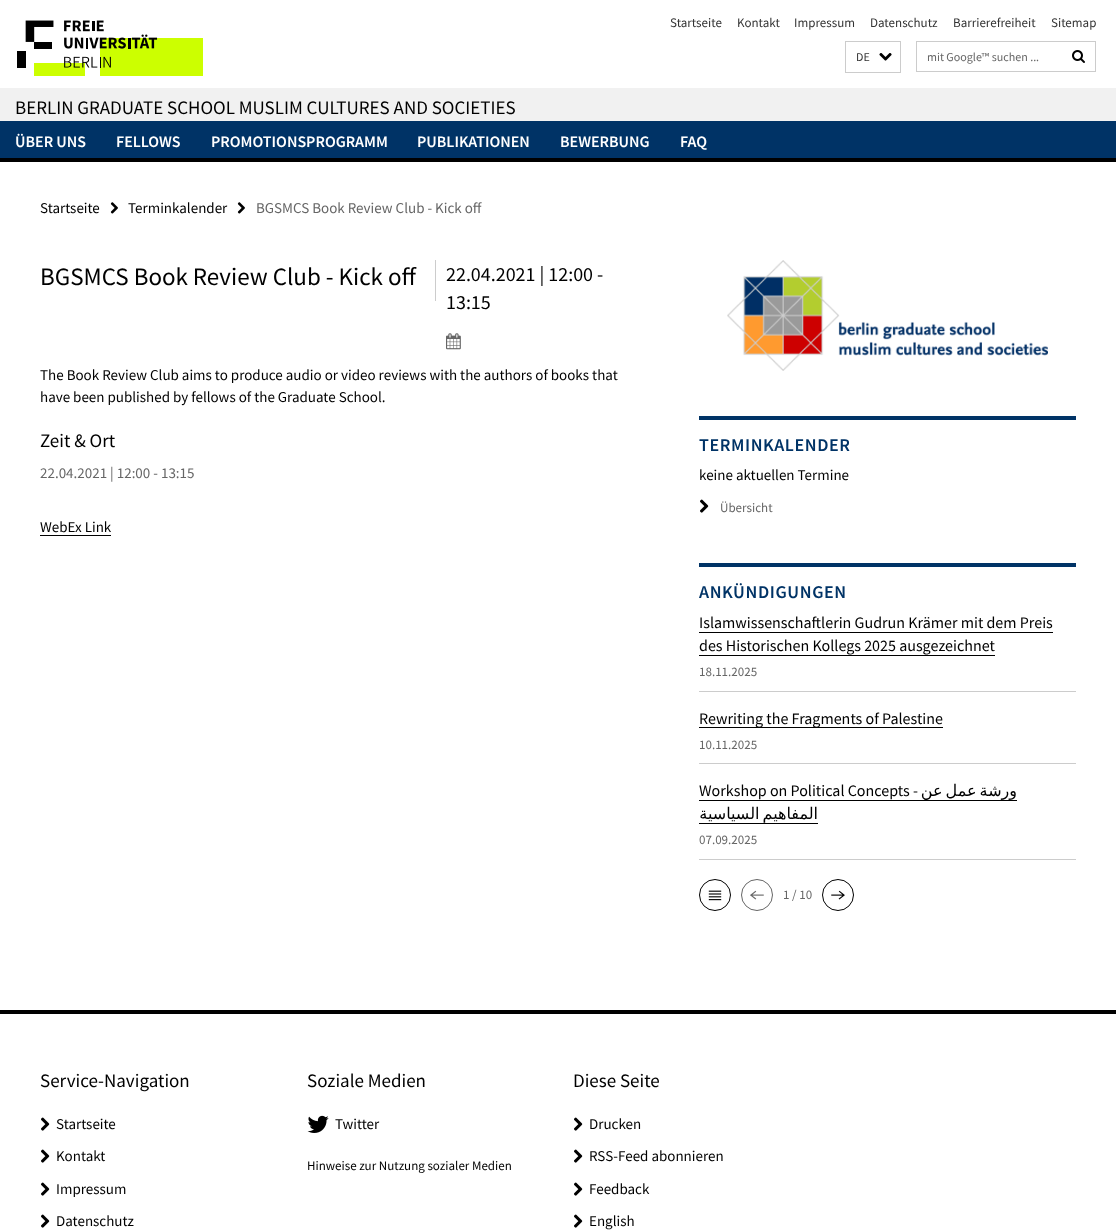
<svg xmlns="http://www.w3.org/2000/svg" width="1116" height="1232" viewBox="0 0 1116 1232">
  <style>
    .t1 { font: 13px Source Sans Pro; fill: #333; }
    .t2 { font: 12px Source Sans Pro; fill: #333; }
    .t3 { font: 12px Source Sans Pro; fill: #666; }
    .t4 { font: 19px Source Sans Pro; fill: #000; }
    .t5 { font: 600 16px Source Sans Pro; fill: #fff; }
    .t6 { font: 15px Source Sans Pro; fill: #000; }
    .t7 { font: 15px Source Sans Pro; fill: #666; }
    .t8 { font: 25px Source Sans Pro; fill: #000; }
    .t9 { font: 20px Source Sans Pro; fill: #000; }
    .t10 { font: 600 18px Source Sans Pro; letter-spacing: 0.6px; fill: #036; }
    .t11 { font: 13px Source Sans Pro; fill: #666; }
    .t12 { font: 16px Source Sans Pro; fill: #000; }
    .t13 { font: 16px DejaVu Sans; direction: rtl; fill: #000; }
    .t14 { font: 13px Source Sans Pro; fill: #000; }
  </style>
  <rect width="100%" height="100%" fill="#fff"/>
  <image x="17" y="20" width="186" height="56" href="images/1.png"/>
  <text x="670" y="27" class="t1">Startseite</text>
  <text x="737" y="27" class="t1">Kontakt</text>
  <text x="794" y="27" class="t1">Impressum</text>
  <text x="870" y="27" class="t1">Datenschutz</text>
  <text x="953" y="27" class="t1">Barrierefreiheit</text>
  <text x="1051" y="27" class="t1">Sitemap</text>
  <rect x="845.5" y="41.5" width="55" height="31" fill="none" stroke="#ccc"/>
  <text x="856" y="61" class="t2">DE</text>
  <image x="879" y="53" width="13" height="8" href="images/2.png"/>
  <rect x="916.5" y="41.5" width="179" height="30" fill="none" stroke="#ccc"/>
  <text x="927" y="61" class="t3">mit Google™ suchen ...</text>
  <image x="1072" y="50" width="13" height="13" href="images/3.png"/>
  <rect x="0" y="88" width="1116" height="33" fill="#f1f1f1"/>
  <text x="15" y="114" class="t4">BERLIN GRADUATE SCHOOL MUSLIM CULTURES AND SOCIETIES</text>
  <rect x="0" y="121" width="1116" height="37" fill="#036"/>
  <rect x="0" y="158" width="1116" height="4" fill="#000"/>
  <text x="15" y="147" class="t5">ÜBER UNS</text>
  <text x="116" y="147" class="t5">FELLOWS</text>
  <text x="211" y="147" class="t5">PROMOTIONSPROGRAMM</text>
  <text x="417" y="147" class="t5">PUBLIKATIONEN</text>
  <text x="560" y="147" class="t5">BEWERBUNG</text>
  <text x="680" y="147" class="t5">FAQ</text>
  <text x="40" y="213" class="t6">Startseite</text>
  <image x="110" y="202" width="8" height="12" href="images/4.png"/>
  <text x="128" y="213" class="t6">Terminkalender</text>
  <image x="237" y="202" width="8" height="12" href="images/4.png"/>
  <text x="256" y="213" class="t7">BGSMCS Book Review Club - Kick off</text>
  <rect x="435" y="260" width="1" height="41" fill="#ccc"/>
  <text x="40" y="285" class="t8">BGSMCS Book Review Club - Kick off</text>
  <text x="446" y="281" class="t9">22.04.2021 | 12:00 -</text>
  <text x="446" y="309" class="t9">13:15</text>
  <image x="446" y="333" width="15" height="17" href="images/5.png"/>
  <text x="40" y="380" class="t6">The Book Review Club aims to produce audio or video reviews with the authors of books that</text>
  <text x="40" y="402" class="t6">have been published by fellows of the Graduate School.</text>
  <text x="40" y="447" class="t4">Zeit &amp; Ort</text>
  <text x="40" y="478" class="t7">22.04.2021 | 12:00 - 13:15</text>
  <text x="40" y="532" class="t6">WebEx Link</text>
  <rect x="40" y="535" width="71" height="1" fill="#000"/>
  <image x="727" y="260" width="321" height="111" href="images/6.png"/>
  <rect x="699" y="416" width="377" height="4" fill="#036"/>
  <text x="699" y="451" class="t10">TERMINKALENDER</text>
  <text x="699" y="480" class="t6">keine aktuellen Termine</text>
  <image x="700" y="499" width="9" height="14" href="images/7.png"/>
  <text x="720" y="512" class="t11">Übersicht</text>
  <rect x="699" y="563" width="377" height="4" fill="#036"/>
  <text x="699" y="598" class="t10">ANKÜNDIGUNGEN</text>
  <rect x="699" y="691" width="377" height="1" fill="#ccc"/>
  <text x="699" y="628" class="t12">Islamwissenschaftlerin Gudrun Krämer mit dem Preis</text>
  <rect x="699" y="632" width="354" height="1" fill="#000"/>
  <text x="699" y="651" class="t12">des Historischen Kollegs 2025 ausgezeichnet</text>
  <rect x="699" y="655" width="296" height="1" fill="#000"/>
  <text x="699" y="676" class="t11">18.11.2025</text>
  <rect x="699" y="763" width="377" height="1" fill="#ccc"/>
  <rect x="699" y="727" width="244" height="1" fill="#000"/>
  <text x="699" y="724" class="t12">Rewriting the Fragments of Palestine</text>
  <text x="699" y="749" class="t11">10.11.2025</text>
  <rect x="699" y="859" width="377" height="1" fill="#ccc"/>
  <text x="699" y="796" class="t12">Workshop on Political Concepts -</text>
  <rect x="699" y="800" width="318" height="1" fill="#000"/>
  <text x="1017" y="796" word-spacing="-2" class="t13">ورشة عمل عن</text>
  <text x="818" y="819" word-spacing="-2" class="t13">المفاهيم السياسية</text>
  <rect x="699" y="823" width="119" height="1" fill="#000"/>
  <text x="699" y="844" class="t11">07.09.2025</text>
  <circle cx="715" cy="895" r="15.5" fill="none" stroke="#000"/>
  <image x="708" y="890" width="14" height="11" href="images/8.png"/>
  <circle cx="757" cy="895" r="15.5" fill="none" stroke="#666"/>
  <image x="750" y="890" width="14" height="10" href="images/9.png"/>
  <text x="783" y="899" class="t11">1 / 10</text>
  <circle cx="838" cy="895" r="15.5" fill="none" stroke="#000"/>
  <image x="831" y="890" width="14" height="10" href="images/10.png"/>
  <rect x="0" y="1010" width="1116" height="4" fill="#000"/>
  <text x="40" y="1087" class="t4">Service-Navigation</text>
  <image x="41" y="1117" width="9" height="14" href="images/7.png"/>
  <text x="56" y="1129" class="t6">Startseite</text>
  <image x="41" y="1149" width="9" height="14" href="images/7.png"/>
  <text x="56" y="1161" class="t6">Kontakt</text>
  <image x="41" y="1182" width="9" height="14" href="images/7.png"/>
  <text x="56" y="1194" class="t6">Impressum</text>
  <image x="41" y="1214" width="9" height="14" href="images/7.png"/>
  <text x="56" y="1226" class="t6">Datenschutz</text>
  <text x="307" y="1087" class="t4">Soziale Medien</text>
  <image x="307" y="1115" width="22" height="18" href="images/11.png"/>
  <text x="335" y="1129" class="t6">Twitter</text>
  <text x="307" y="1170" class="t14">Hinweise zur Nutzung sozialer Medien</text>
  <text x="573" y="1087" class="t4">Diese Seite</text>
  <image x="574" y="1117" width="9" height="14" href="images/7.png"/>
  <text x="589" y="1129" class="t6">Drucken</text>
  <image x="574" y="1149" width="9" height="14" href="images/7.png"/>
  <text x="589" y="1161" class="t6">RSS-Feed abonnieren</text>
  <image x="574" y="1182" width="9" height="14" href="images/7.png"/>
  <text x="589" y="1194" class="t6">Feedback</text>
  <image x="574" y="1214" width="9" height="14" href="images/7.png"/>
  <text x="589" y="1226" class="t6">English</text>
</svg>
